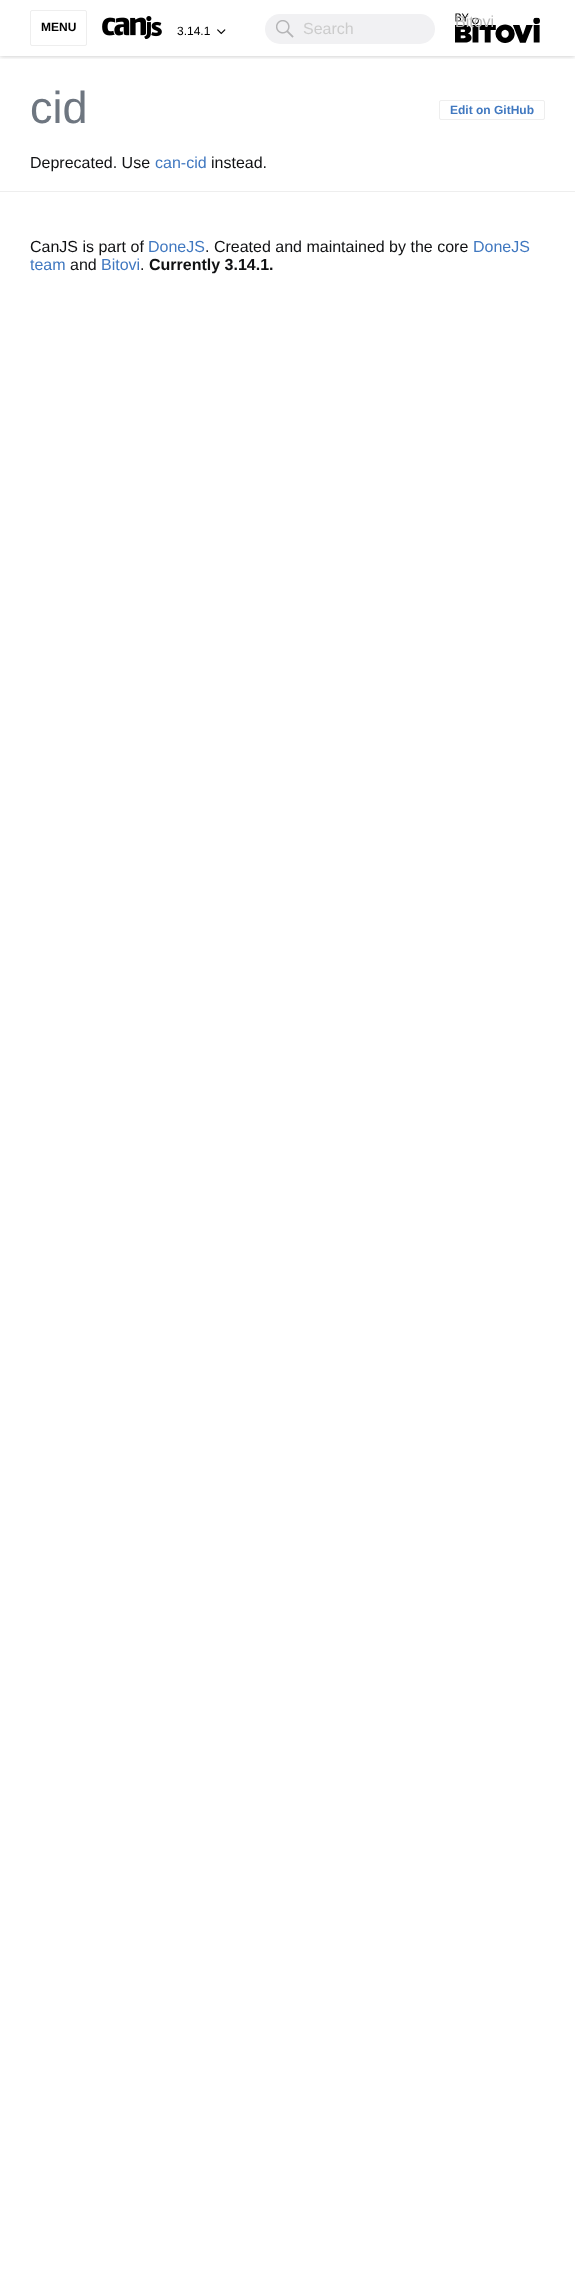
<svg xmlns="http://www.w3.org/2000/svg" width="575" height="2282" viewBox="0 0 575 2282">
  <style>
    .t1 { font: bold 12px Liberation Sans; fill: #000; }
    .t2 { font: 12px Liberation Sans; fill: #000; }
    .t3 { font: 16px Liberation Sans; fill: #ccc; }
    .t4 { font: 16px Liberation Sans; fill: #bbb; }
    .t5 { font: 45px Liberation Sans; fill: #6e7680; }
    .t6 { font: bold 12px Liberation Sans; fill: #4078c0; }
    .t7 { font: 16px Liberation Sans; fill: #101113; }
    .t8 { font: 16px Liberation Sans; fill: #4078c0; }
    .t9 { font: bold 16px Liberation Sans; fill: #101113; }
  </style>
  <defs>
    <clipPath id="clip1"><rect x="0" y="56" width="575" height="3"/></clipPath>
  </defs>
  <rect width="100%" height="100%" fill="#fff"/>
  <g clip-path="url(#clip1)">
    <rect x="0" y="0" width="575" height="56" fill="#00000040" filter="blur(2.5px)"/>
  </g>
  <rect x="30.5" y="10.5" width="56" height="35" rx="1.5" fill="none" stroke="#eee"/>
  <text x="41" y="31" class="t1">MENU</text>
  <image x="102" y="16" width="60" height="23" href="images/1.png"/>
  <text x="177" y="35" class="t2">3.14.1</text>
  <image x="217" y="29" width="9" height="6" href="images/2.png"/>
  <rect x="265" y="14" width="170" height="30" rx="15" fill="#f1f1f3"/>
  <image x="276" y="20" width="18" height="18" href="images/3.png"/>
  <text x="303" y="34" class="t3">Search</text>
  <image x="455" y="13" width="85" height="30" href="images/4.png"/>
  <text x="455" y="27" class="t4">Bitovi</text>
  <text x="30" y="123" class="t5">cid</text>
  <rect x="439.5" y="100.5" width="105" height="19" rx="1.5" fill="none" stroke="#eee"/>
  <text x="450" y="114" class="t6">Edit on GitHub</text>
  <text x="30" y="168" class="t7">Deprecated. Use</text>
  <text x="155" y="168" class="t8">can-cid</text>
  <text x="211" y="168" class="t7">instead.</text>
  <rect x="0" y="191" width="575" height="1" fill="#eee"/>
  <text x="30" y="252" class="t7">CanJS is part of</text>
  <text x="148" y="252" class="t8">DoneJS</text>
  <text x="205" y="252" class="t7">. Created and maintained by the core</text>
  <text x="473" y="252" class="t8">DoneJS</text>
  <text x="30" y="270" class="t8">team</text>
  <text x="70" y="270" class="t7">and</text>
  <text x="101" y="270" class="t8">Bitovi</text>
  <text x="140" y="270" class="t7">.</text>
  <text x="149" y="270" class="t9">Currently 3.14.1.</text>
</svg>
